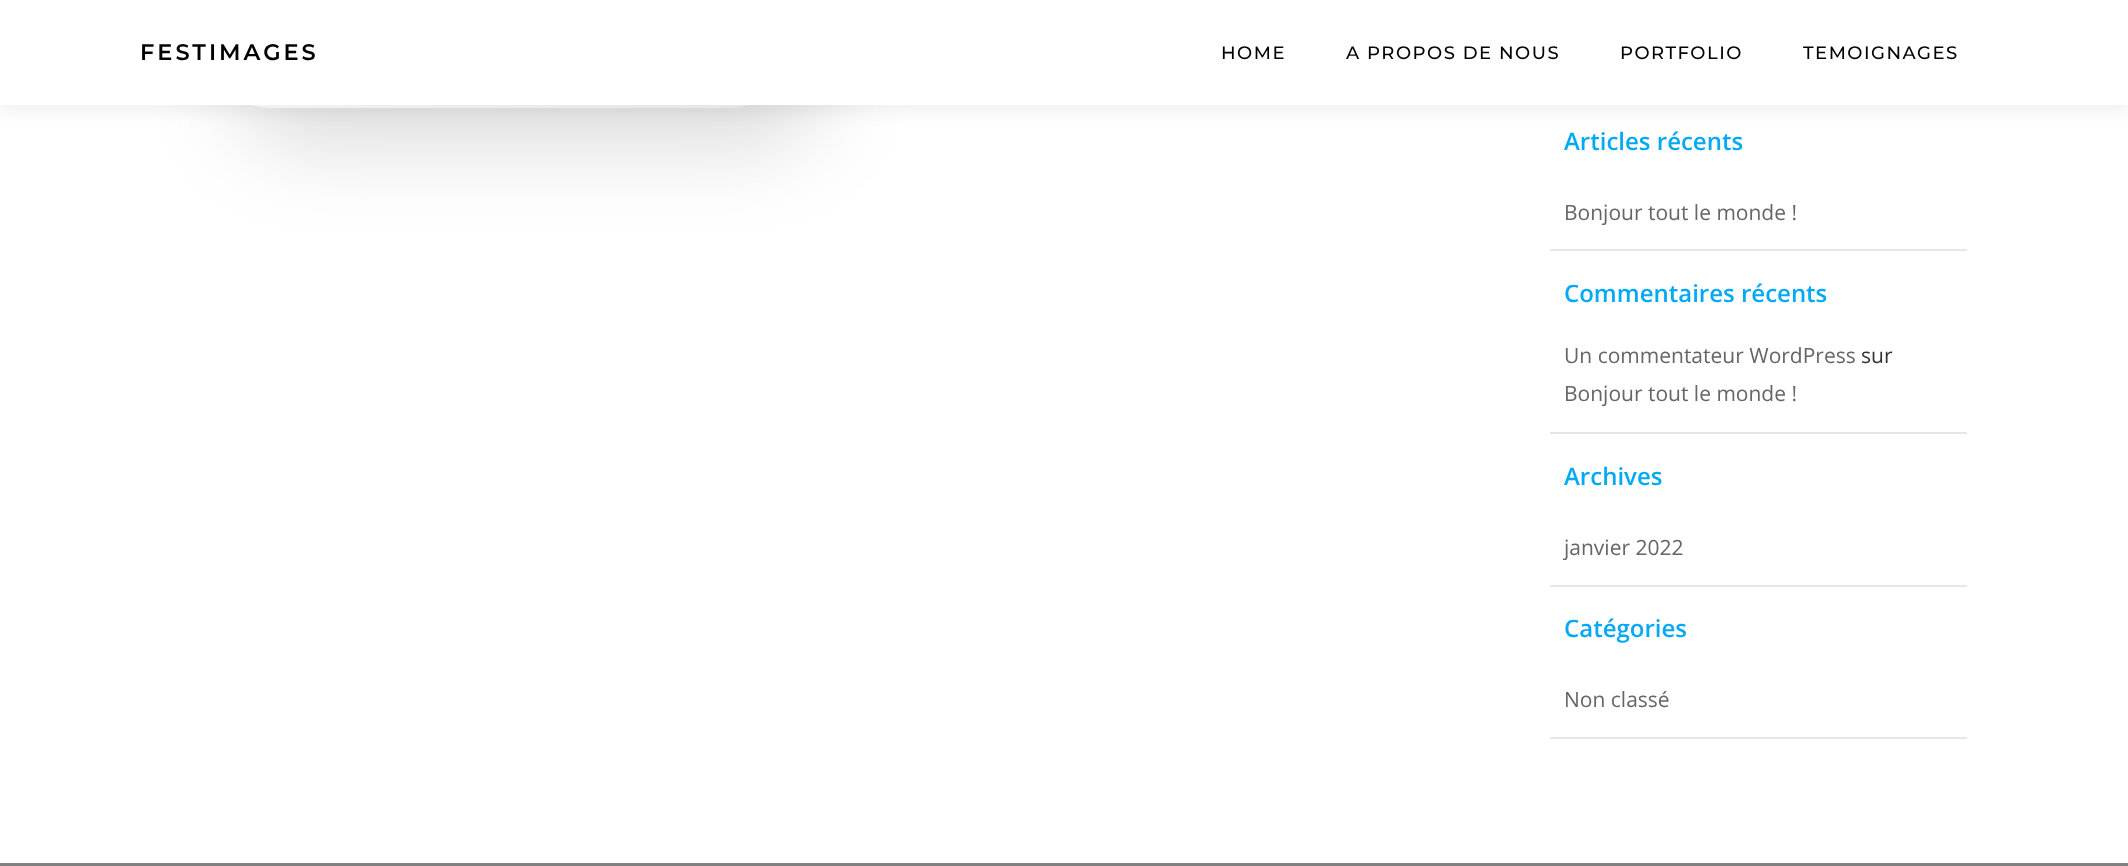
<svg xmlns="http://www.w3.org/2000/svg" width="2128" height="866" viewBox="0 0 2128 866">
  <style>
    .t1 { font: 600 22.5px Montserrat; letter-spacing: 3px; fill: #000; }
    .t2 { font: 500 18px Montserrat; letter-spacing: 1.5px; fill: #000; }
    .t3 { font: 600 24px Open Sans; fill: #03a9f4; }
    .t4 { font: 21px Open Sans; fill: #666; }
    .t5 { font: 21px Open Sans; fill: #333; }
  </style>
  <defs>
    <linearGradient id="g1" gradientUnits="userSpaceOnUse" x1="326" y1="-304" x2="672" y2="190"><stop offset="0.42" stop-color="#fff"/><stop offset="1" stop-color="#efefef"/></linearGradient>
  </defs>
  <rect width="100%" height="100%" fill="#fff"/>
  <rect x="236" y="-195" width="586" height="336" rx="63" fill="#00000026" filter="blur(45px)"/>
  <rect x="209" y="-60" width="580" height="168" rx="60" fill="url(#g1)"/>
  <rect x="0" y="8" width="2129" height="105" fill="#0000000d" filter="blur(7.5px)"/>
  <rect x="0" y="0" width="2128" height="105" fill="#fff"/>
  <text x="140" y="60" class="t1">FESTIMAGES</text>
  <text x="1221" y="59" class="t2">HOME</text>
  <text x="1346" y="59" class="t2">A PROPOS DE NOUS</text>
  <text x="1620" y="59" class="t2">PORTFOLIO</text>
  <text x="1803" y="59" class="t2">TEMOIGNAGES</text>
  <rect x="1550" y="249" width="417" height="2" fill="#e6e6e6"/>
  <text x="1564" y="150" class="t3">Articles récents</text>
  <text x="1564" y="220" class="t4">Bonjour tout le monde !</text>
  <rect x="1550" y="432" width="417" height="2" fill="#e6e6e6"/>
  <text x="1564" y="302" class="t3">Commentaires récents</text>
  <text x="1564" y="363" class="t4">Un commentateur WordPress</text>
  <text x="1861" y="363" class="t5">sur</text>
  <text x="1564" y="401" class="t4">Bonjour tout le monde !</text>
  <rect x="1550" y="585" width="417" height="2" fill="#e6e6e6"/>
  <text x="1564" y="485" class="t3">Archives</text>
  <text x="1564" y="555" class="t4">janvier 2022</text>
  <rect x="1550" y="737" width="417" height="2" fill="#e6e6e6"/>
  <text x="1564" y="637" class="t3">Catégories</text>
  <text x="1564" y="707" class="t4">Non classé</text>
  <rect x="0" y="863" width="2128" height="3" fill="#808080"/>
</svg>
